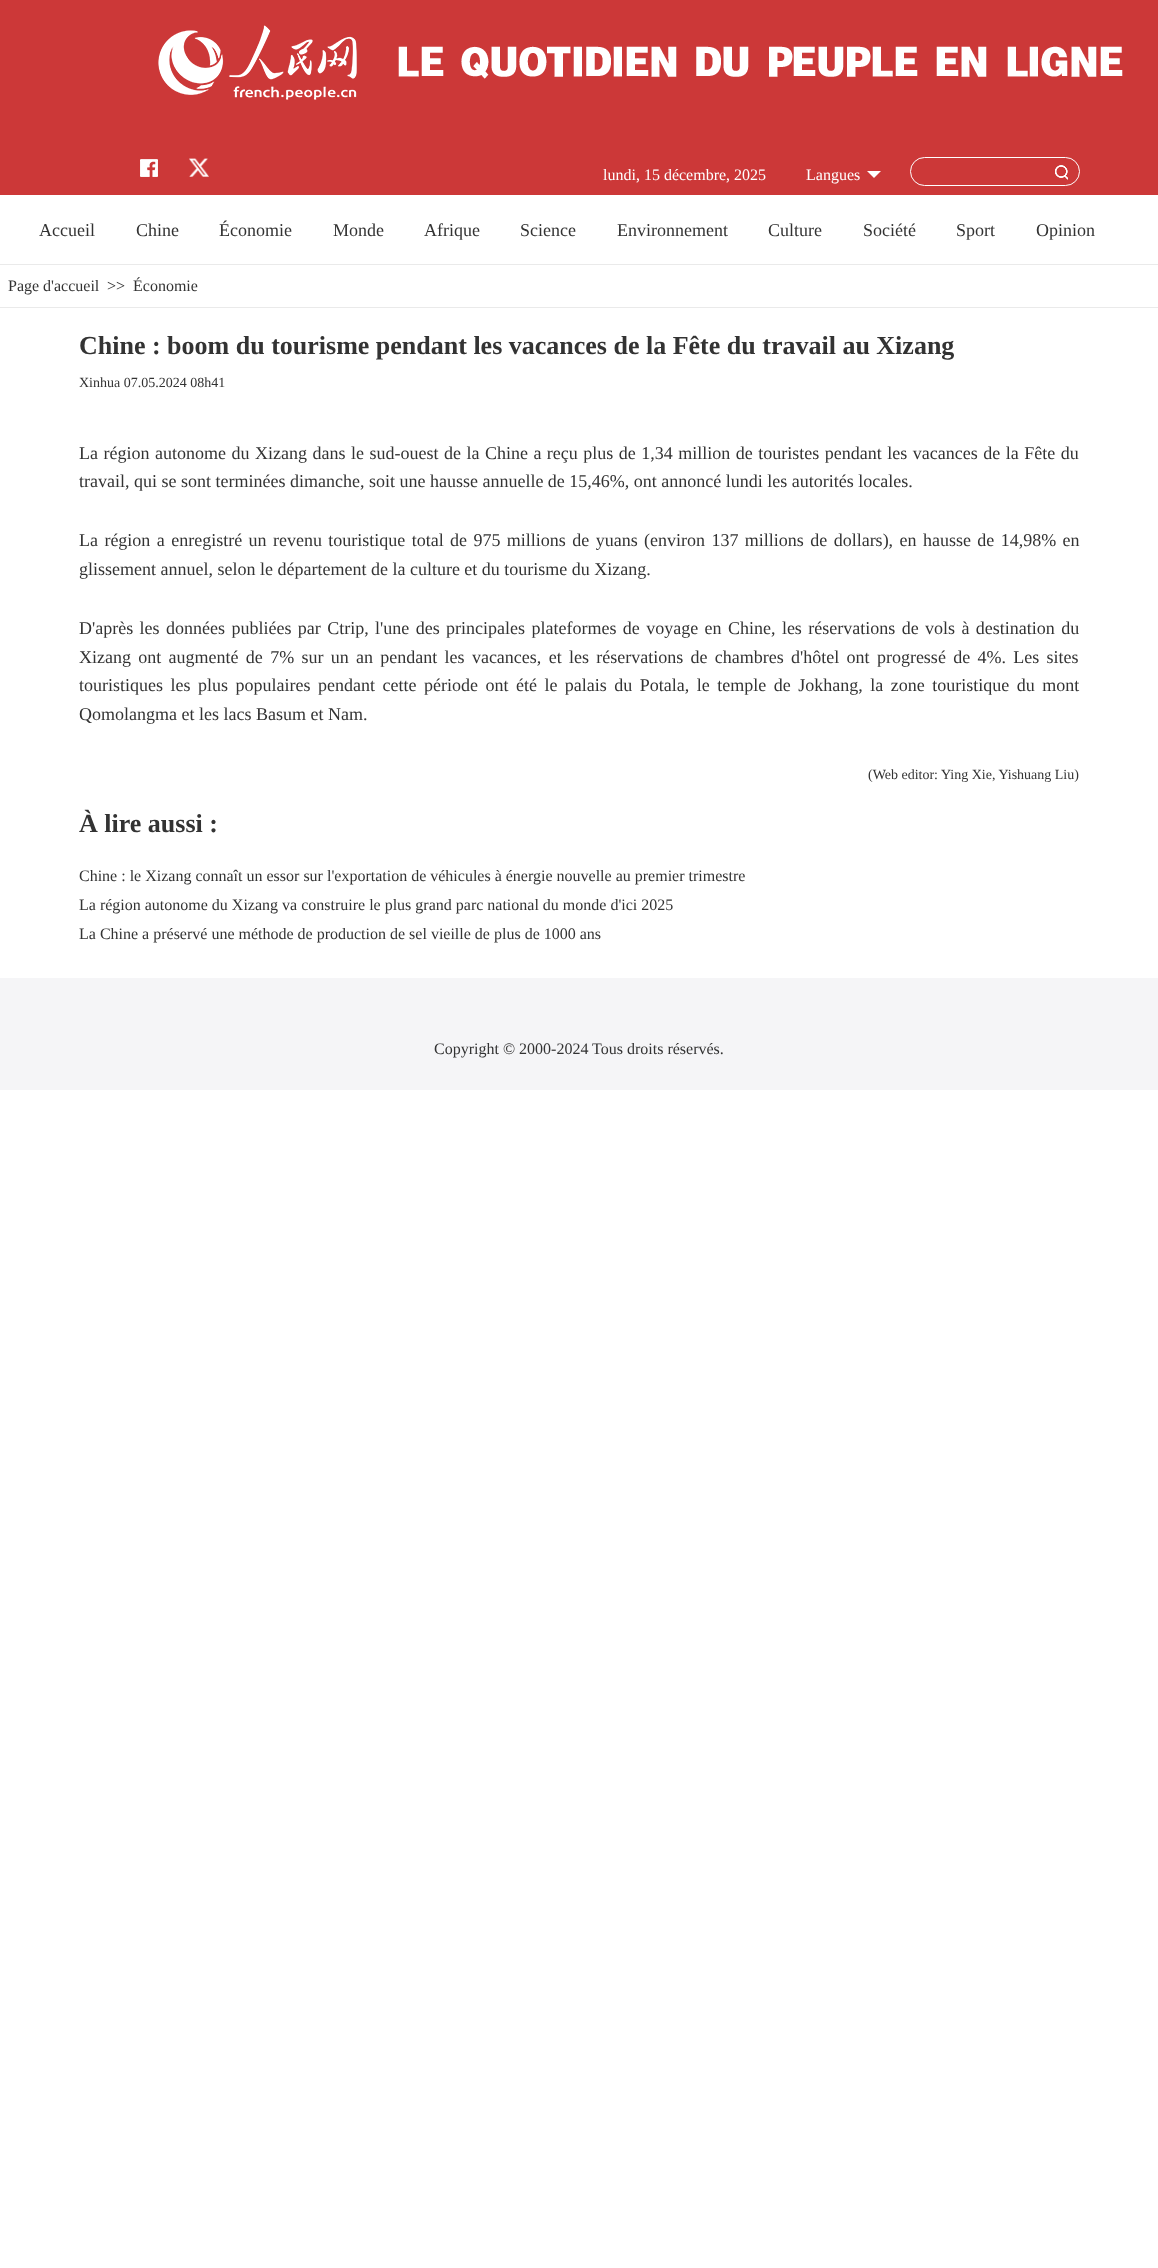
<svg xmlns="http://www.w3.org/2000/svg" width="1158" height="2268" viewBox="0 0 1158 2268">
  <style>
    .t1 { font: 16px Liberation Serif; fill: #fff; }
    .t2 { font: 18px Liberation Serif; fill: #333; }
    .t3 { font: 16px Liberation Serif; fill: #333; }
    .t4 { font: bold 26px Liberation Serif; fill: #333; }
    .t5 { font: 14px Liberation Serif; fill: #333; }
  </style>
  <rect width="100%" height="100%" fill="#fff"/>
  <rect x="0" y="0" width="1158" height="195" fill="#cc3838"/>
  <image x="158" y="25" width="199" height="75" href="images/1.png"/>
  <image x="398" y="46" width="725" height="33" href="images/2.png"/>
  <image x="140" y="159" width="18" height="18" href="images/3.png"/>
  <image x="189" y="158" width="20" height="19" href="images/4.png"/>
  <text x="603" y="180" class="t1">lundi, 15 décembre, 2025</text>
  <text x="806" y="180" class="t1">Langues</text>
  <image x="867" y="171" width="14" height="7" href="images/5.png"/>
  <rect x="910.5" y="157.5" width="169" height="28" rx="14" fill="none" stroke="#fff"/>
  <image x="1055" y="165" width="13" height="15" href="images/6.png"/>
  <image x="1055" y="165" width="13" height="15" href="images/7.png"/>
  <rect x="0" y="264" width="1158" height="1" fill="#eaeaea"/>
  <text x="39" y="236" class="t2">Accueil</text>
  <text x="136" y="236" class="t2">Chine</text>
  <text x="219" y="236" class="t2">Économie</text>
  <text x="333" y="236" class="t2">Monde</text>
  <text x="424" y="236" class="t2">Afrique</text>
  <text x="520" y="236" class="t2">Science</text>
  <text x="617" y="236" class="t2">Environnement</text>
  <text x="768" y="236" class="t2">Culture</text>
  <text x="863" y="236" class="t2">Société</text>
  <text x="956" y="236" class="t2">Sport</text>
  <text x="1036" y="236" class="t2">Opinion</text>
  <rect x="0" y="307" width="1158" height="1" fill="#eaeaea"/>
  <text x="8" y="291" class="t3">Page d'accueil</text>
  <text x="107" y="291" class="t3">&gt;&gt;</text>
  <text x="133" y="291" class="t3">Économie</text>
  <text x="79" y="354" class="t4">Chine : boom du tourisme pendant les vacances de la Fête du travail au Xizang</text>
  <text x="79" y="387" class="t5">Xinhua 07.05.2024 08h41</text>
  <text x="79" y="459" word-spacing="1" class="t2">La région autonome du Xizang dans le sud-ouest de la Chine a reçu plus de 1,34 million de touristes pendant les vacances de la Fête du</text>
  <text x="79" y="487" class="t2">travail, qui se sont terminées dimanche, soit une hausse annuelle de 15,46%, ont annoncé lundi les autorités locales.</text>
  <text x="79" y="546" word-spacing="1.9" class="t2">La région a enregistré un revenu touristique total de 975 millions de yuans (environ 137 millions de dollars), en hausse de 14,98% en</text>
  <text x="79" y="575" class="t2">glissement annuel, selon le département de la culture et du tourisme du Xizang.</text>
  <text x="79" y="634" word-spacing="1.9" class="t2">D'après les données publiées par Ctrip, l'une des principales plateformes de voyage en Chine, les réservations de vols à destination du</text>
  <text x="79" y="663" word-spacing="2.8" class="t2">Xizang ont augmenté de 7% sur un an pendant les vacances, et les réservations de chambres d'hôtel ont progressé de 4%. Les sites</text>
  <text x="79" y="691" word-spacing="3" class="t2">touristiques les plus populaires pendant cette période ont été le palais du Potala, le temple de Jokhang, la zone touristique du mont</text>
  <text x="79" y="720" class="t2">Qomolangma et les lacs Basum et Nam.</text>
  <text x="868" y="779" class="t5">(Web editor: Ying Xie, Yishuang Liu)</text>
  <text x="79" y="832" class="t4">À lire aussi :</text>
  <text x="79" y="881" class="t3">Chine : le Xizang connaît un essor sur l'exportation de véhicules à énergie nouvelle au premier trimestre</text>
  <text x="79" y="910" class="t3">La région autonome du Xizang va construire le plus grand parc national du monde d'ici 2025</text>
  <text x="79" y="939" class="t3">La Chine a préservé une méthode de production de sel vieille de plus de 1000 ans</text>
  <rect x="0" y="978" width="1158" height="112" fill="#f5f5f7"/>
  <text x="434" y="1054" class="t3">Copyright © 2000-2024 Tous droits réservés.</text>
</svg>
